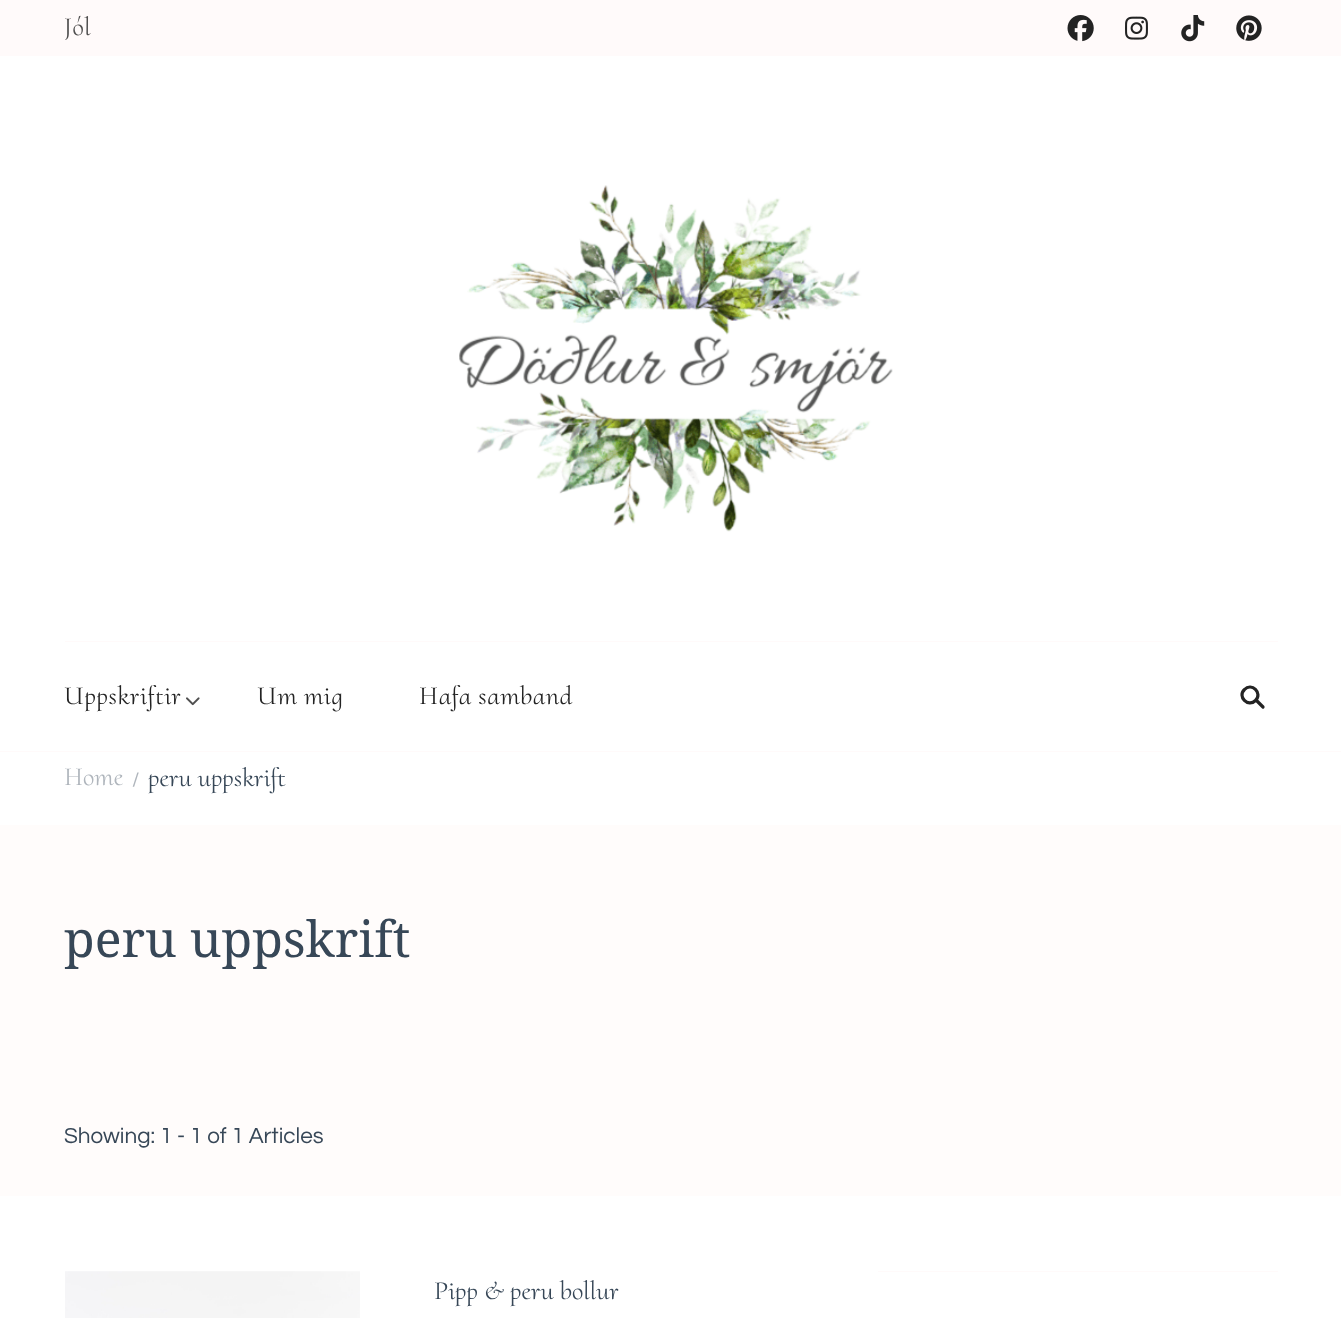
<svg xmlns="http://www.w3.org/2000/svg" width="1341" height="1318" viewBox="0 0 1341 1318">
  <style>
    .t1 { font: 26.25px Cormorant Upright; letter-spacing: 0.6px; fill: #4f4e4e; }
    .t2 { font: 26.25px Cormorant Upright; letter-spacing: 0.6px; fill: #232323; }
    .t3 { font: 26.25px Cormorant Upright; fill: #afb5bc; }
    .t4 { font: 20px Questrial; fill: #afb5bc; }
    .t5 { font: 26.25px Cormorant Upright; fill: #374757; }
    .t6 { font: 50px Noto Serif; fill: #374757; }
    .t7 { font: 22.5px Questrial; fill: #374757; }
  </style>
  <rect width="100%" height="100%" fill="#fff"/>
  <rect x="0" y="751" width="1341" height="1" fill="#fffafa"/>
  <rect x="0" y="0" width="1341" height="56" fill="#fffafa"/>
  <text x="64" y="35" class="t1">Jól</text>
  <image x="1067" y="15" width="27" height="27" href="images/1.png"/>
  <image x="1125" y="16" width="23" height="24" href="images/2.png"/>
  <image x="1181" y="15" width="24" height="27" href="images/3.png"/>
  <image x="1236" y="15" width="26" height="26" href="images/4.png"/>
  <rect x="65" y="641" width="1213" height="1" fill="#fffafa"/>
  <image x="459" y="185" width="434" height="347" href="images/5.png"/>
  <text x="64" y="704" class="t2">Uppskriftir</text>
  <image x="186" y="697" width="14" height="9" href="images/6.png"/>
  <text x="257" y="704" class="t2">Um mig</text>
  <text x="419" y="704" class="t2">Hafa samband</text>
  <path d="M1244.5 689.5C1251.5 682 1263 693 1255.5 700.5C1248 708 1237 696.5 1244.5 689.5Z" fill="none" stroke="#232323" stroke-width="3.2"/>
  <path d="M1256.5 700.5L1263 707" fill="none" stroke="#232323" stroke-width="3.2" stroke-linecap="round"/>
  <text x="64" y="785" class="t3">Home</text>
  <text x="132" y="786" class="t4">/</text>
  <text x="148" y="786" class="t5">peru uppskrift</text>
  <rect x="0" y="825" width="1341" height="371" fill="#fffcfb"/>
  <text x="64" y="957" class="t6">peru uppskrift</text>
  <text x="64" y="1143" class="t7">Showing: 1 - 1 of 1 Articles</text>
  <rect x="878" y="1271" width="400" height="1" fill="#fffafa"/>
  <image x="65" y="1271" width="295" height="47" href="images/7.png"/>
  <text x="434" y="1299" class="t5">Pipp &amp; peru bollur</text>
</svg>
